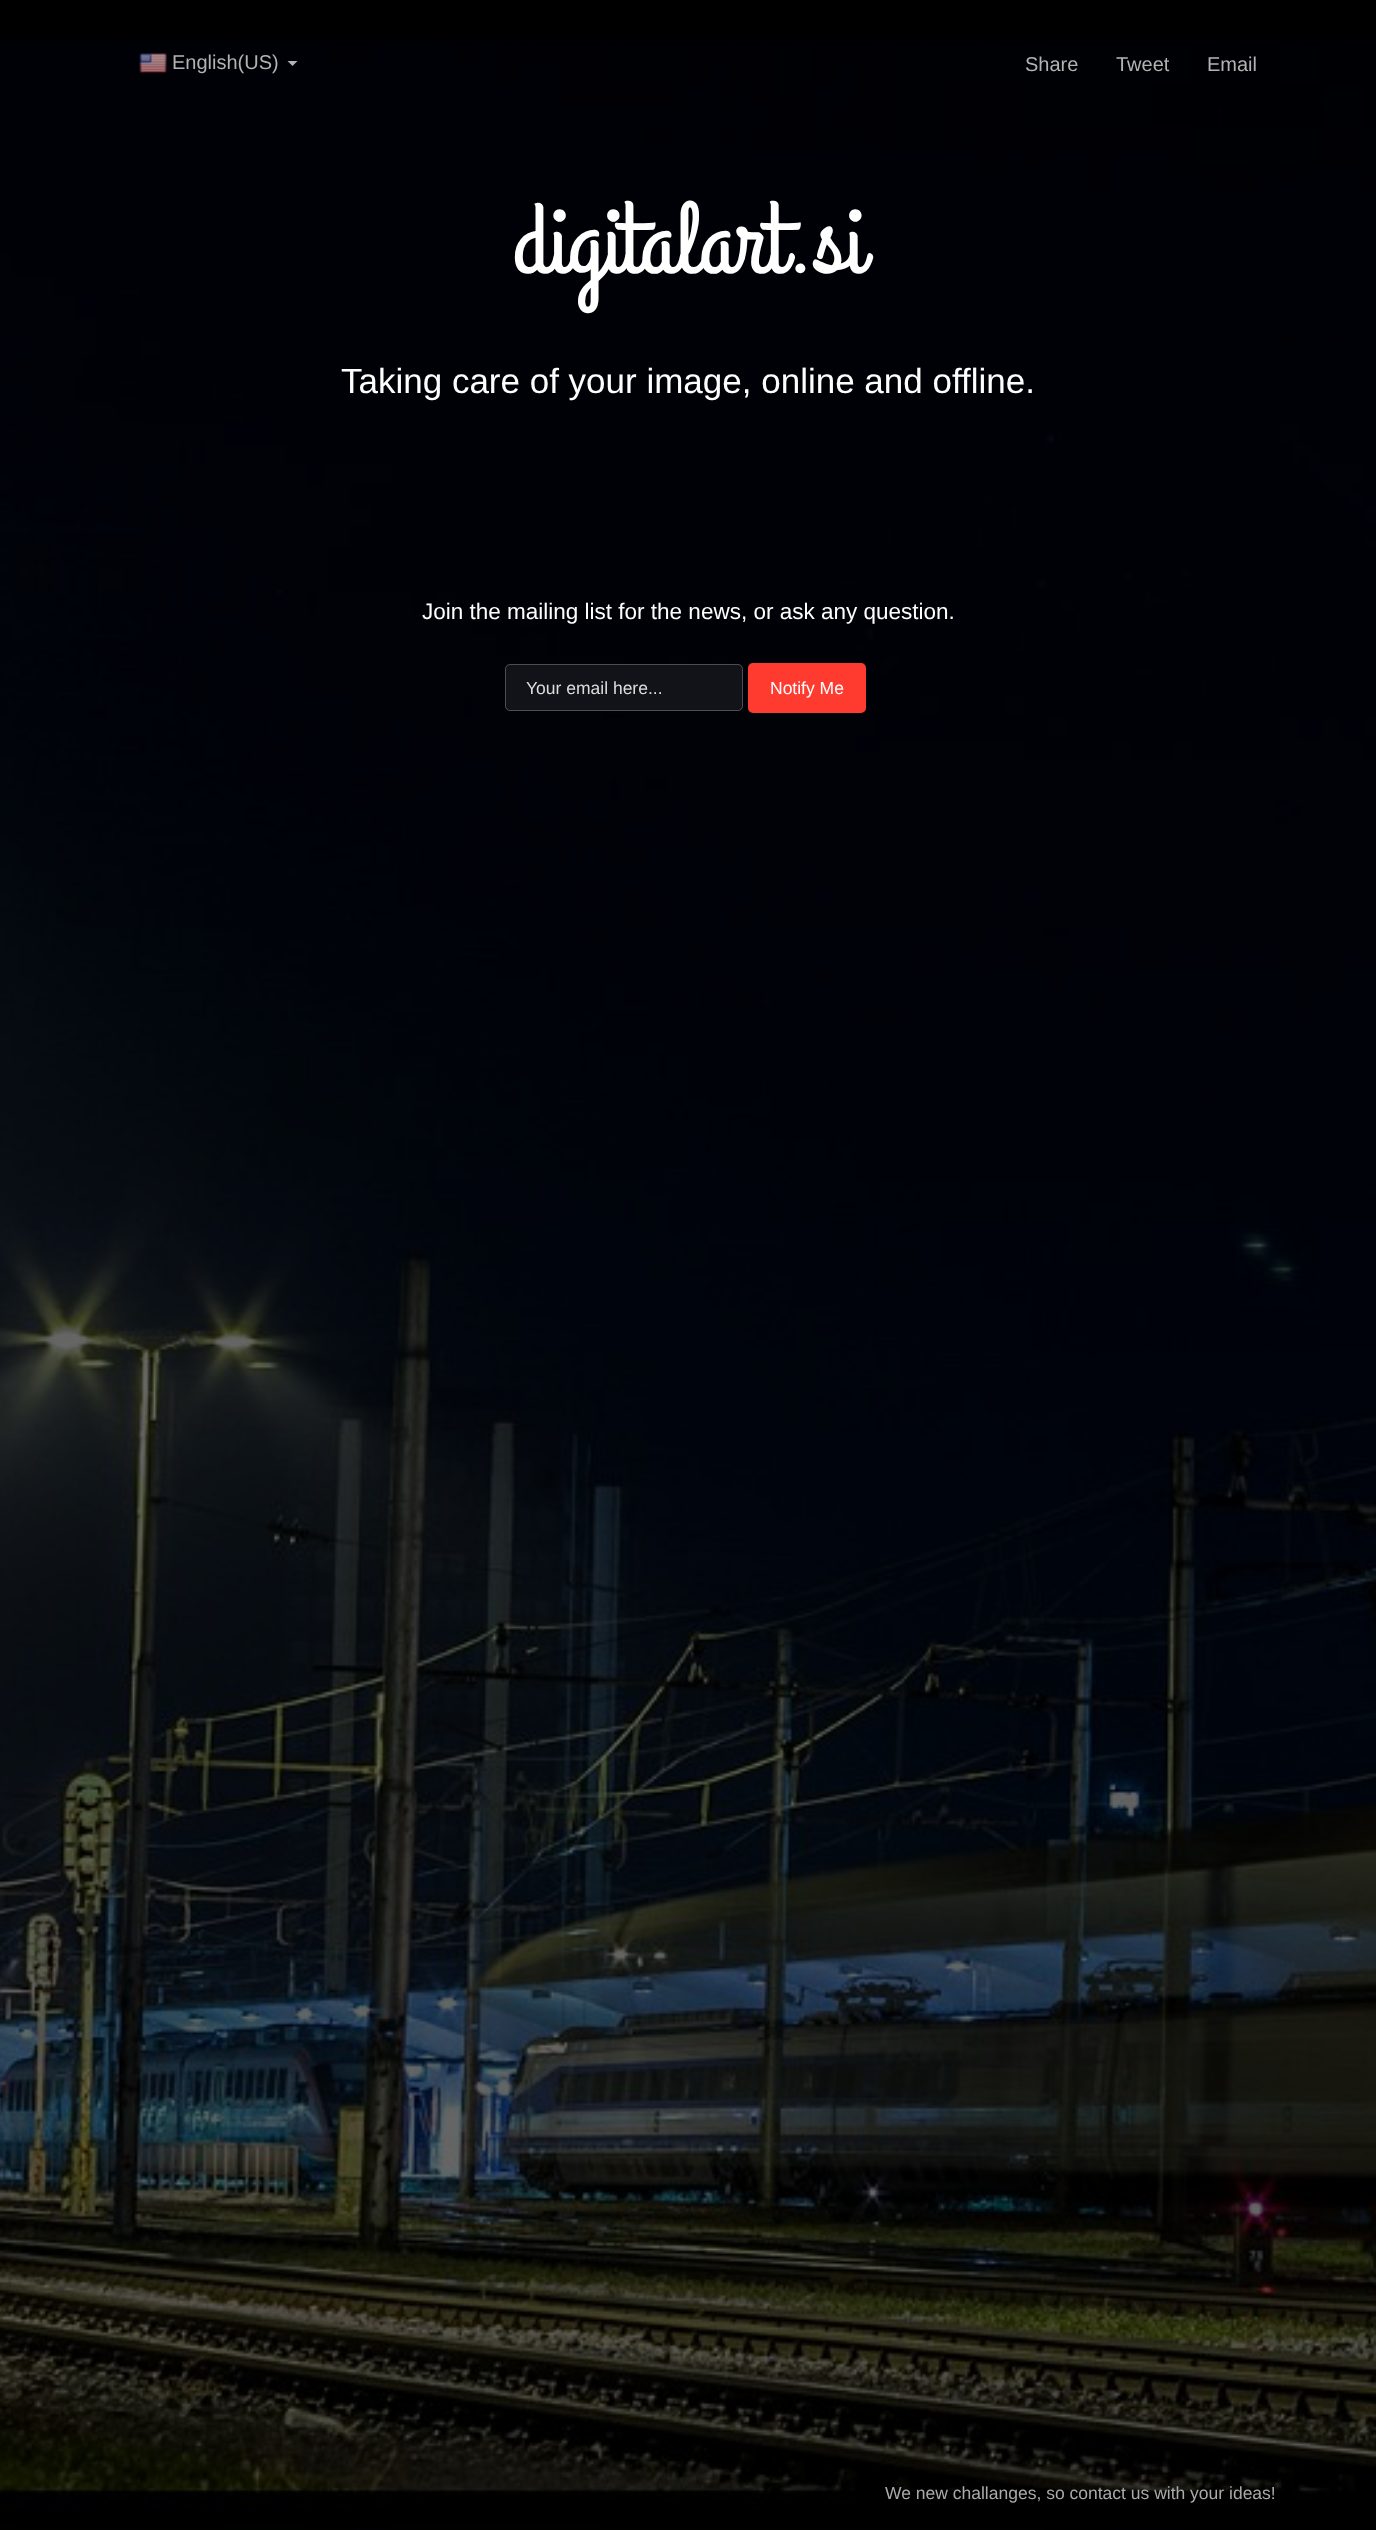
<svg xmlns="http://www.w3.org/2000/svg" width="1376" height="2530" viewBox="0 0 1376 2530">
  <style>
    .t1 { font: 20px Liberation Sans; fill: #b3b3b4; }
    .t2 { font: 102.5px Grand Hotel; fill: #fff; }
    .t3 { font: 35px Liberation Sans; fill: #fff; }
    .t4 { font: 22.5px Liberation Sans; fill: #fff; }
    .t5 { font: 17.5px Liberation Sans; fill: #ddd; }
    .t6 { font: 17.5px Liberation Sans; fill: #fff; }
    .t7 { font: 17.5px Liberation Sans; fill: #aaa; }
  </style>
  <rect width="100%" height="100%" fill="#fff"/>
  <image x="0" y="0" width="1376" height="2530" href="images/2.png"/>
  <image x="139" y="53" width="28" height="21" href="images/1.png"/>
  <text x="172" y="69" class="t1">English(US)</text>
  <path d="M287.5 61H297.5L292.5 66Z" fill="#b3b3b4"/>
  <text x="1025" y="71" class="t1">Share</text>
  <text x="1116" y="71" class="t1">Tweet</text>
  <text x="1207" y="71" class="t1">Email</text>
  <text x="513" y="271" class="t2">digitalart.si</text>
  <text x="341" y="393" class="t3">Taking care of your image, online and offline.</text>
  <text x="422" y="619" class="t4">Join the mailing list for the news, or ask any question.</text>
  <rect x="505" y="664" width="238" height="47" rx="5" fill="#121319"/>
  <rect x="505.5" y="664.5" width="237" height="46" rx="4.5" fill="none" stroke="#eeeeee45"/>
  <text x="526" y="694" class="t5">Your email here...</text>
  <rect x="749.5" y="664.5" width="115" height="47" rx="3.5" fill="#ff3b30" stroke="#ff3b30" stroke-width="3"/>
  <text x="770" y="694" class="t6">Notify Me</text>
  <text x="885" y="2499" class="t7">We new challanges, so contact us with your ideas!</text>
</svg>
